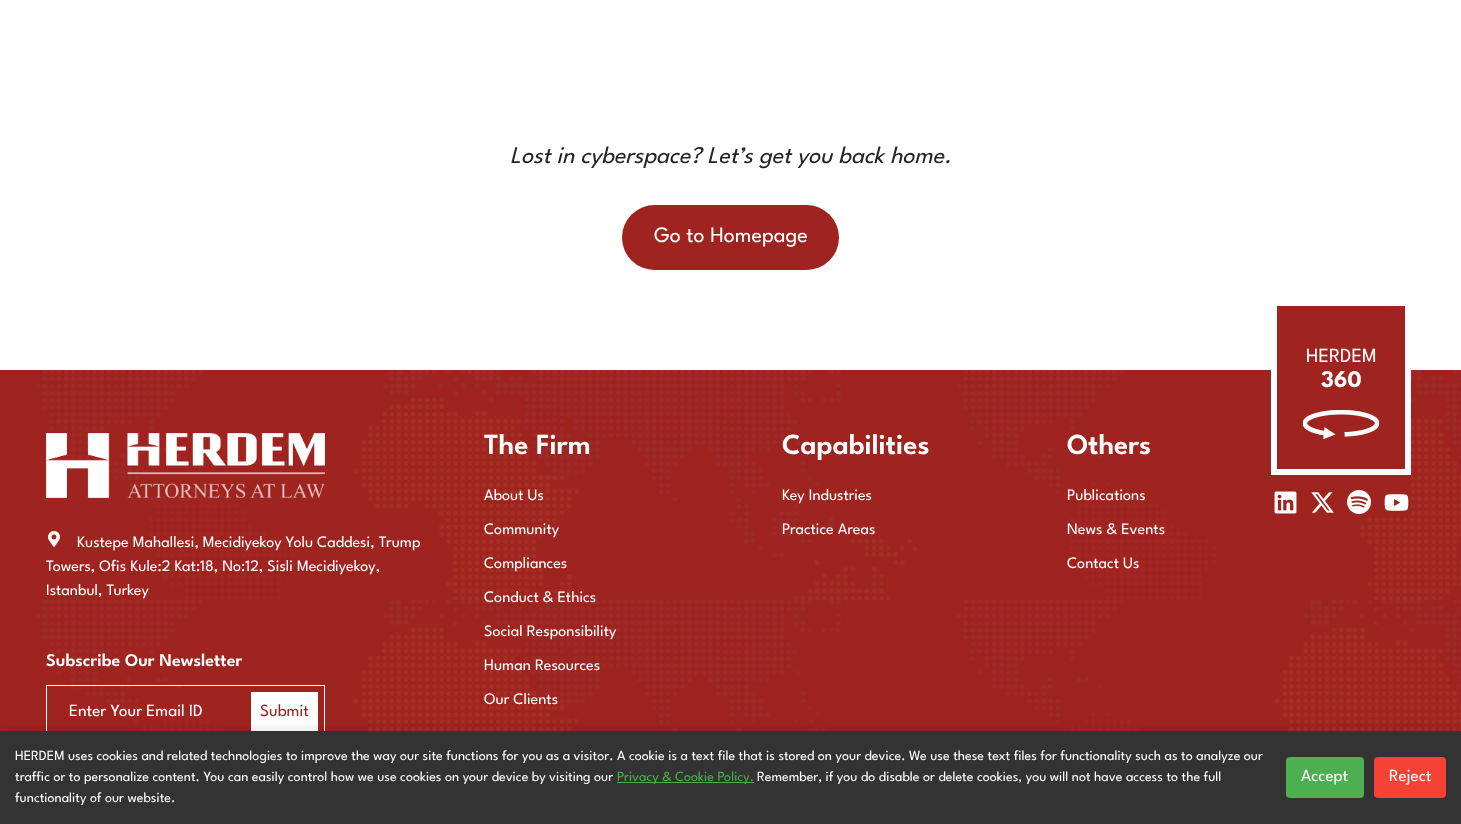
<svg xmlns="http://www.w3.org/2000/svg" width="1461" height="824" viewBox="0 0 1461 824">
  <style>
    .t1 { font: italic 24px League Spartan; fill: #212529; }
    .t2 { font: 22px League Spartan; fill: #fff; }
    .t3 { font: 20px League Spartan; fill: #fff; }
    .t4 { font: bold 24px League Spartan; fill: #fff; }
    .t5 { font: 600 29px League Spartan; fill: #fff; }
    .t6 { font: 16px League Spartan; fill: #fff; }
    .t7 { font: 600 18px League Spartan; fill: #fff; }
    .t8 { font: 17px League Spartan; fill: #fff; }
    .t9 { font: 17px League Spartan; fill: #9f241f; }
    .t10 { font: 14px League Spartan; fill: #fff; }
    .t11 { font: 14px League Spartan; fill: #4caf50; }
  </style>
  <rect width="100%" height="100%" fill="#fff"/>
  <text x="510" y="163" class="t1">Lost in cyberspace? Let’s get you back home.</text>
  <rect x="622" y="205" width="217" height="65" rx="32.5" fill="#9f241f"/>
  <text x="654" y="242" class="t2">Go to Homepage</text>
  <rect x="0" y="370" width="1461" height="361" fill="#9f241f"/>
  <image x="35" y="370" width="1426" height="361" href="images/6.png"/>
  <rect x="1271" y="306" width="140" height="209" fill="#9f241f"/>
  <rect x="1274" y="303" width="134" height="169" fill="none" stroke="#fff" stroke-width="6"/>
  <text x="1306" y="362" class="t3">HERDEM</text>
  <text x="1321" y="387" class="t4">360</text>
  <image x="1302" y="410" width="78" height="29" href="images/1.png"/>
  <image x="1274" y="491" width="23" height="23" href="images/2.png"/>
  <image x="1311" y="492" width="23" height="21" href="images/3.png"/>
  <image x="1347" y="490" width="24" height="24" href="images/4.png"/>
  <image x="1384" y="494" width="25" height="17" href="images/5.png"/>
  <text x="484" y="454" class="t5">The Firm</text>
  <text x="484" y="500" class="t6">About Us</text>
  <text x="484" y="534" class="t6">Community</text>
  <text x="484" y="568" class="t6">Compliances</text>
  <text x="484" y="602" class="t6">Conduct &amp; Ethics</text>
  <text x="484" y="636" class="t6">Social Responsibility</text>
  <text x="484" y="670" class="t6">Human Resources</text>
  <text x="484" y="704" class="t6">Our Clients</text>
  <text x="782" y="454" class="t5">Capabilities</text>
  <text x="782" y="500" class="t6">Key Industries</text>
  <text x="782" y="534" class="t6">Practice Areas</text>
  <text x="1067" y="454" class="t5">Others</text>
  <text x="1067" y="500" class="t6">Publications</text>
  <text x="1067" y="534" class="t6">News &amp; Events</text>
  <text x="1067" y="568" class="t6">Contact Us</text>
  <image x="46" y="433" width="279" height="65" href="images/7.png"/>
  <image x="48" y="531" width="12" height="16" href="images/8.png"/>
  <text x="77" y="547" class="t6">Kustepe Mahallesi, Mecidiyekoy Yolu Caddesi, Trump</text>
  <text x="46" y="571" class="t6">Towers, Ofis Kule:2 Kat:18, No:12, Sisli Mecidiyekoy,</text>
  <text x="46" y="595" class="t6">Istanbul, Turkey</text>
  <text x="46" y="666" class="t7">Subscribe Our Newsletter</text>
  <rect x="46.5" y="685.5" width="278" height="53" fill="none" stroke="#fff"/>
  <text x="69" y="716" class="t8">Enter Your Email ID</text>
  <rect x="251" y="692" width="67" height="39" fill="#fff"/>
  <text x="260" y="716" class="t9">Submit</text>
  <rect x="0" y="729" width="1461" height="93" fill="#0000001a" filter="blur(5px)"/>
  <rect x="0" y="731" width="1461" height="93" fill="#333"/>
  <text x="15" y="760" class="t10">HERDEM uses cookies and related technologies to improve the way our site functions for you as a visitor. A cookie is a text file that is stored on your device. We use these text files for functionality such as to analyze our</text>
  <text x="15" y="781" class="t10">traffic or to personalize content. You can easily control how we use cookies on your device by visiting our</text>
  <rect x="617" y="782" width="137" height="1" fill="#4caf50"/>
  <text x="617" y="781" class="t11">Privacy &amp; Cookie Policy.</text>
  <text x="757" y="781" class="t10">Remember, if you do disable or delete cookies, you will not have access to the full</text>
  <text x="15" y="802" class="t10">functionality of our website.</text>
  <rect x="1286" y="757" width="78" height="41" rx="4" fill="#4caf50"/>
  <text x="1301" y="781" class="t8">Accept</text>
  <rect x="1374" y="757" width="72" height="41" rx="4" fill="#f44336"/>
  <text x="1389" y="781" class="t8">Reject</text>
</svg>
